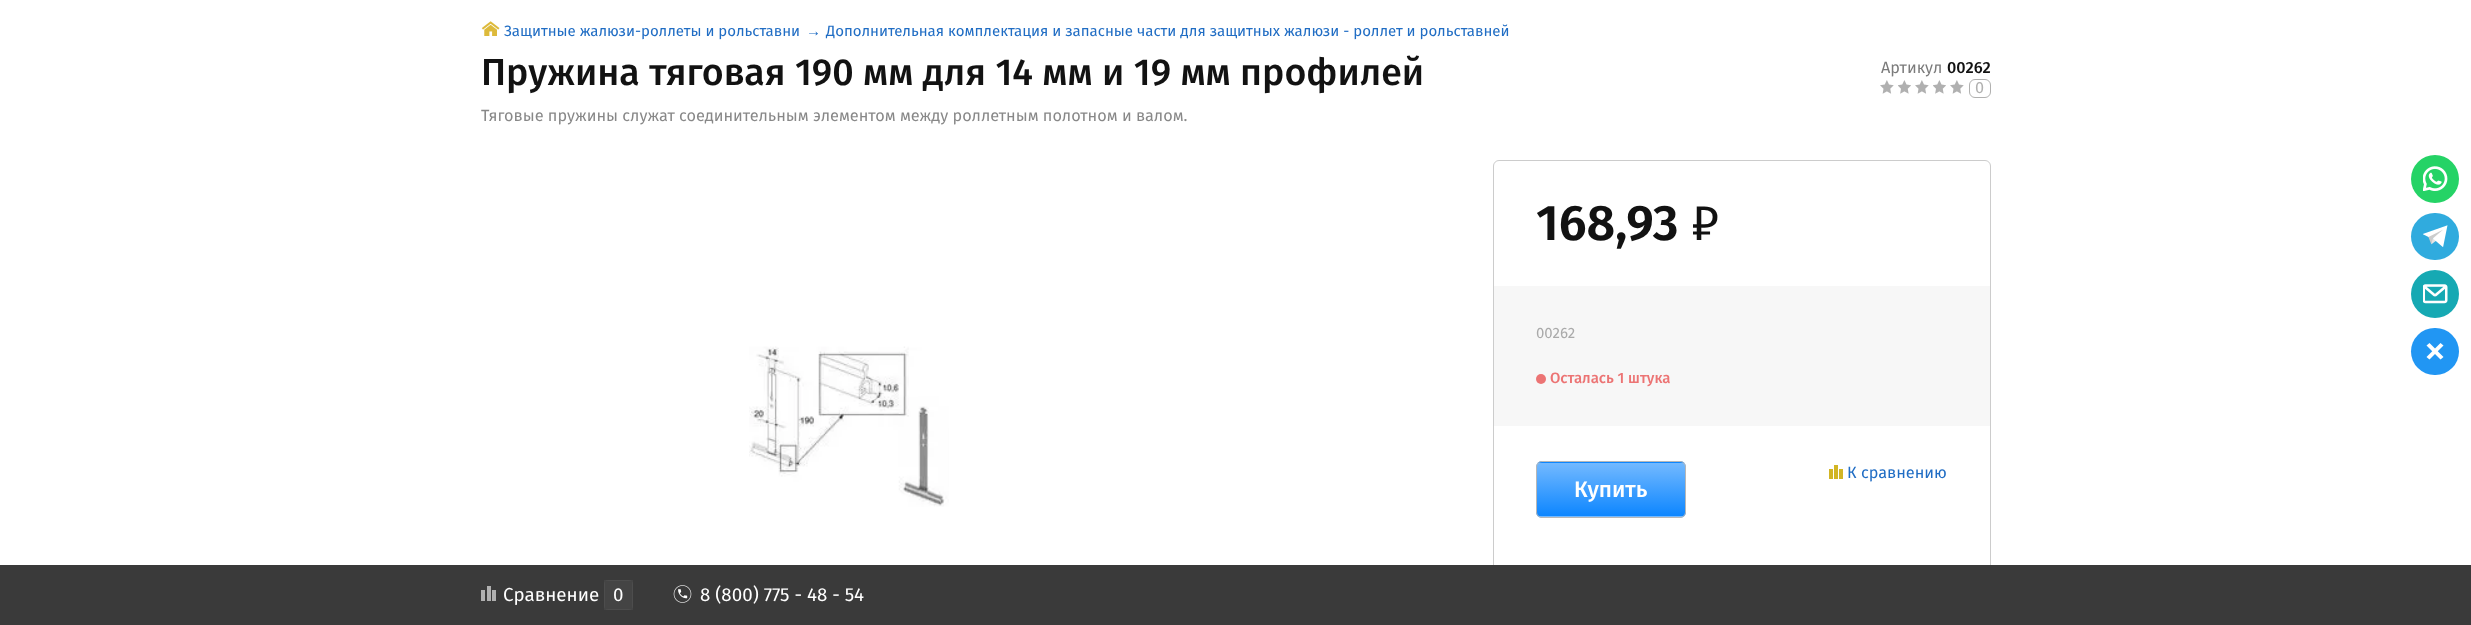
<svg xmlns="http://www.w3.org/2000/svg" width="2471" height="625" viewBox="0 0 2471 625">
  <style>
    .t1 { font: 15px Fira Sans; fill: #206dc4; }
    .t2 { font: 15px Liberation Sans; fill: #206dc4; }
    .t3 { font: 500 37.5px Fira Sans; fill: #121212; }
    .t4 { font: 16.25px Fira Sans; fill: #888; }
    .t5 { font: 16.25px Fira Sans; fill: #7b7b7b; }
    .t6 { font: 500 16.25px Fira Sans; fill: #121212; }
    .t7 { font: 16.25px Fira Sans; fill: #b1b1b0; }
    .t8 { font: 600 50px Fira Sans; fill: #121212; }
    .t9 { font: 50px Fira Sans; fill: #121212; }
    .t10 { font: 15px Fira Sans; fill: #aaa; }
    .t11 { font: 500 15px Fira Sans; fill: #ec7474; }
    .t12 { font: 16.25px Fira Sans; fill: #206dc4; }
    .t13 { font: 500 22.5px Fira Sans; fill: #fff; }
    .t14 { font: 18.75px Fira Sans; fill: #fff; }
  </style>
  <defs>
    <clipPath id="clip1"><rect x="1536" y="461" width="150" height="57" rx="6"/></clipPath>
    <linearGradient id="g1" gradientUnits="userSpaceOnUse" x1="1611" y1="409" x2="1611" y2="463"><stop offset="0" stop-color="#73b9ff"/><stop offset="1" stop-color="#0d86ff"/></linearGradient>
    <linearGradient id="g2" gradientUnits="userSpaceOnUse" x1="1611" y1="463" x2="1611" y2="516"><stop offset="0" stop-color="#73b9ff"/><stop offset="1" stop-color="#0d86ff"/></linearGradient>
    <linearGradient id="g3" gradientUnits="userSpaceOnUse" x1="1611" y1="516" x2="1611" y2="570"><stop offset="0" stop-color="#73b9ff"/><stop offset="1" stop-color="#0d86ff"/></linearGradient>
  </defs>
  <rect width="100%" height="100%" fill="#fff"/>
  <image x="481" y="21" width="19" height="15" href="images/1.png"/>
  <text x="504" y="36" class="t1">Защитные жалюзи-роллеты и рольставни</text>
  <text x="806" y="36" class="t2">→</text>
  <text x="826" y="36" class="t1">Дополнительная комплектация и запасные части для защитных жалюзи - роллет и рольставней</text>
  <text x="481" y="85" class="t3">Пружина тяговая 190 мм для 14 мм и 19 мм профилей</text>
  <text x="481" y="121" class="t4">Тяговые пружины служат соединительным элементом между роллетным полотном и валом.</text>
  <text x="1881" y="73" class="t5">Артикул</text>
  <text x="1947" y="73" class="t6">00262</text>
  <image x="1880" y="80" width="14" height="14" href="images/2.png"/>
  <image x="1898" y="80" width="13" height="14" href="images/3.png"/>
  <image x="1915" y="80" width="14" height="14" href="images/2.png"/>
  <image x="1933" y="80" width="13" height="14" href="images/3.png"/>
  <image x="1950" y="80" width="14" height="14" href="images/2.png"/>
  <rect x="1969.5" y="79.5" width="21" height="18" rx="5.5" fill="none" stroke="#b1b1b0"/>
  <text x="1975" y="93" class="t7">0</text>
  <image x="749" y="346" width="200" height="161" href="images/4.png"/>
  <rect x="1493.5" y="160.5" width="497" height="458" rx="5.5" fill="none" stroke="#ccc"/>
  <text x="1536" y="240" class="t8">168,93</text>
  <text x="1691" y="240" class="t9">₽</text>
  <rect x="1494" y="286" width="496" height="140" fill="#f7f7f7"/>
  <text x="1536" y="338" class="t10">00262</text>
  <circle cx="1541" cy="379" r="5" fill="#ec7474"/>
  <text x="1550" y="383" class="t11">Осталась 1 штука</text>
  <image x="1829" y="465" width="14" height="14" href="images/5.png"/>
  <text x="1847" y="478" class="t12">К сравнению</text>
  <g clip-path="url(#clip1)">
    <rect x="1536" y="461" width="150" height="2" fill="url(#g1)"/>
    <rect x="1536" y="463" width="150" height="53" fill="url(#g2)"/>
    <rect x="1536" y="516" width="150" height="2" fill="url(#g3)"/>
  </g>
  <rect x="1536.5" y="461.5" width="149" height="56" rx="5.5" fill="none" stroke="#b7b7b7"/>
  <text x="1574" y="497" class="t13">Купить</text>
  <circle cx="2435" cy="179" r="24" fill="#25d366"/>
  <image x="2423" y="166" width="25" height="25" href="images/6.png"/>
  <rect x="2411" y="213" width="48" height="47" rx="23.5" fill="#30abde"/>
  <image x="2423" y="225" width="25" height="22" href="images/7.png"/>
  <circle cx="2435" cy="294" r="24" fill="#16a9b3"/>
  <image x="2423" y="284" width="25" height="20" href="images/8.png"/>
  <rect x="2411" y="328" width="48" height="47" rx="23.5" fill="#2196f3"/>
  <path d="M2429.5 343L2443.5 357L2440.5 359.5L2426.5 345.5Z" fill="#fff"/>
  <path d="M2426.5 357L2440.5 343L2443.5 345.5L2429.5 359.5Z" fill="#fff"/>
  <rect x="0" y="565" width="2471" height="60" fill="#3a3a3a"/>
  <image x="481" y="586" width="15" height="15" href="images/9.png"/>
  <text x="503" y="601" class="t14">Сравнение</text>
  <rect x="604" y="580" width="29" height="30" rx="4" fill="#444"/>
  <rect x="604.5" y="580.5" width="28" height="29" fill="none" stroke="#ffffff0d"/>
  <text x="613" y="601" class="t14">0</text>
  <image x="673" y="585" width="19" height="18" href="images/10.png"/>
  <text x="700" y="601" class="t14">8 (800) 775 - 48 - 54</text>
</svg>
